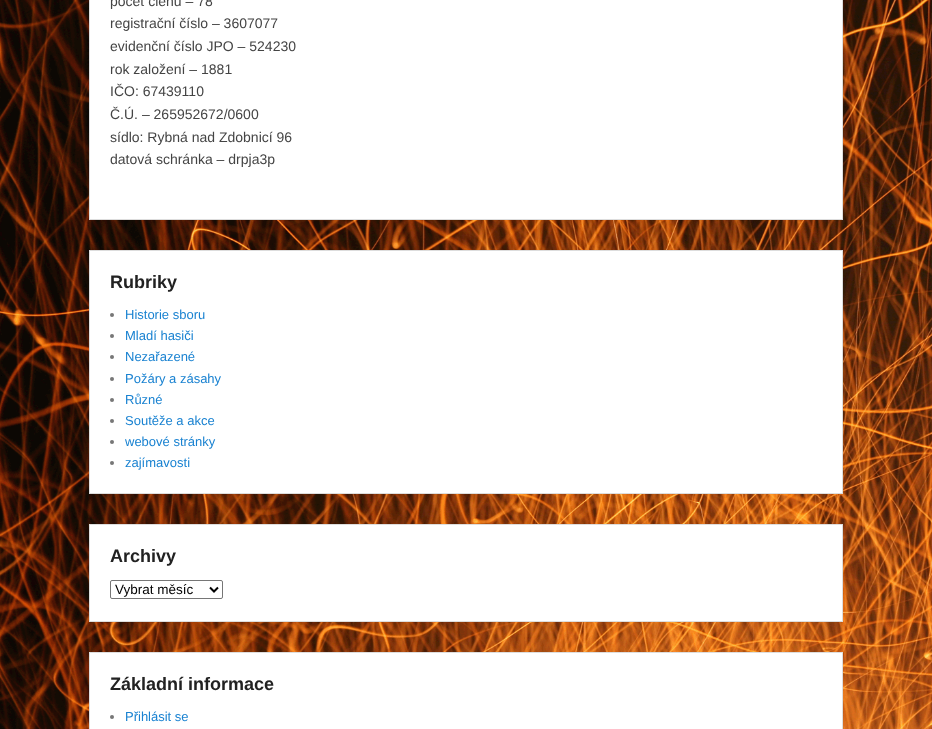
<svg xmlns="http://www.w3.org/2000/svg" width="932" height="729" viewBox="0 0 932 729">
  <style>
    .t1 { font: 14px Liberation Sans; fill: #444; }
    .t2 { font: bold 18px Liberation Sans; fill: #222; }
    .t3 { font: 13px Liberation Sans; fill: #1982d1; }
    .t4 { font: 13.5px Liberation Sans; fill: #000; }
  </style>
  <rect width="100%" height="100%" fill="#fff"/>
  <image x="0" y="0" width="932" height="729" href="images/1.png"/>
  <rect x="89.5" y="-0.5" width="753" height="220" fill="#fff" stroke="#ddd"/>
  <text x="110" y="6" class="t1">počet členů – 78</text>
  <text x="110" y="28" class="t1">registrační číslo – 3607077</text>
  <text x="110" y="51" class="t1">evidenční číslo JPO – 524230</text>
  <text x="110" y="74" class="t1">rok založení – 1881</text>
  <text x="110" y="96" class="t1">IČO: 67439110</text>
  <text x="110" y="119" class="t1">Č.Ú. – 265952672/0600</text>
  <text x="110" y="142" class="t1">sídlo: Rybná nad Zdobnicí 96</text>
  <text x="110" y="164" class="t1">datová schránka – drpja3p</text>
  <rect x="89.5" y="250.5" width="753" height="243" fill="#fff" stroke="#ddd"/>
  <text x="110" y="288" class="t2">Rubriky</text>
  <circle cx="112" cy="315" r="2" fill="#777"/>
  <text x="125" y="319" class="t3">Historie sboru</text>
  <circle cx="112" cy="336" r="2" fill="#777"/>
  <text x="125" y="340" class="t3">Mladí hasiči</text>
  <circle cx="112" cy="357" r="2" fill="#777"/>
  <text x="125" y="361" class="t3">Nezařazené</text>
  <circle cx="112" cy="379" r="2" fill="#777"/>
  <text x="125" y="383" class="t3">Požáry a zásahy</text>
  <circle cx="112" cy="400" r="2" fill="#777"/>
  <text x="125" y="404" class="t3">Různé</text>
  <circle cx="112" cy="421" r="2" fill="#777"/>
  <text x="125" y="425" class="t3">Soutěže a akce</text>
  <circle cx="112" cy="442" r="2" fill="#777"/>
  <text x="125" y="446" class="t3">webové stránky</text>
  <circle cx="112" cy="463" r="2" fill="#777"/>
  <text x="125" y="467" class="t3">zajímavosti</text>
  <rect x="89.5" y="524.5" width="753" height="97" fill="#fff" stroke="#ddd"/>
  <text x="110" y="562" class="t2">Archivy</text>
  <rect x="110.5" y="580.5" width="112" height="18" rx="1.5" fill="none" stroke="#767676"/>
  <path d="M210 587.5L214 591.5L218 587.5" fill="none" stroke="#000" stroke-width="2"/>
  <text x="115" y="594" class="t4">Vybrat měsíc</text>
  <rect x="89.5" y="652.5" width="753" height="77" fill="#fff" stroke="#ddd"/>
  <text x="110" y="690" class="t2">Základní informace</text>
  <circle cx="112" cy="717" r="2" fill="#777"/>
  <text x="125" y="721" class="t3">Přihlásit se</text>
</svg>
